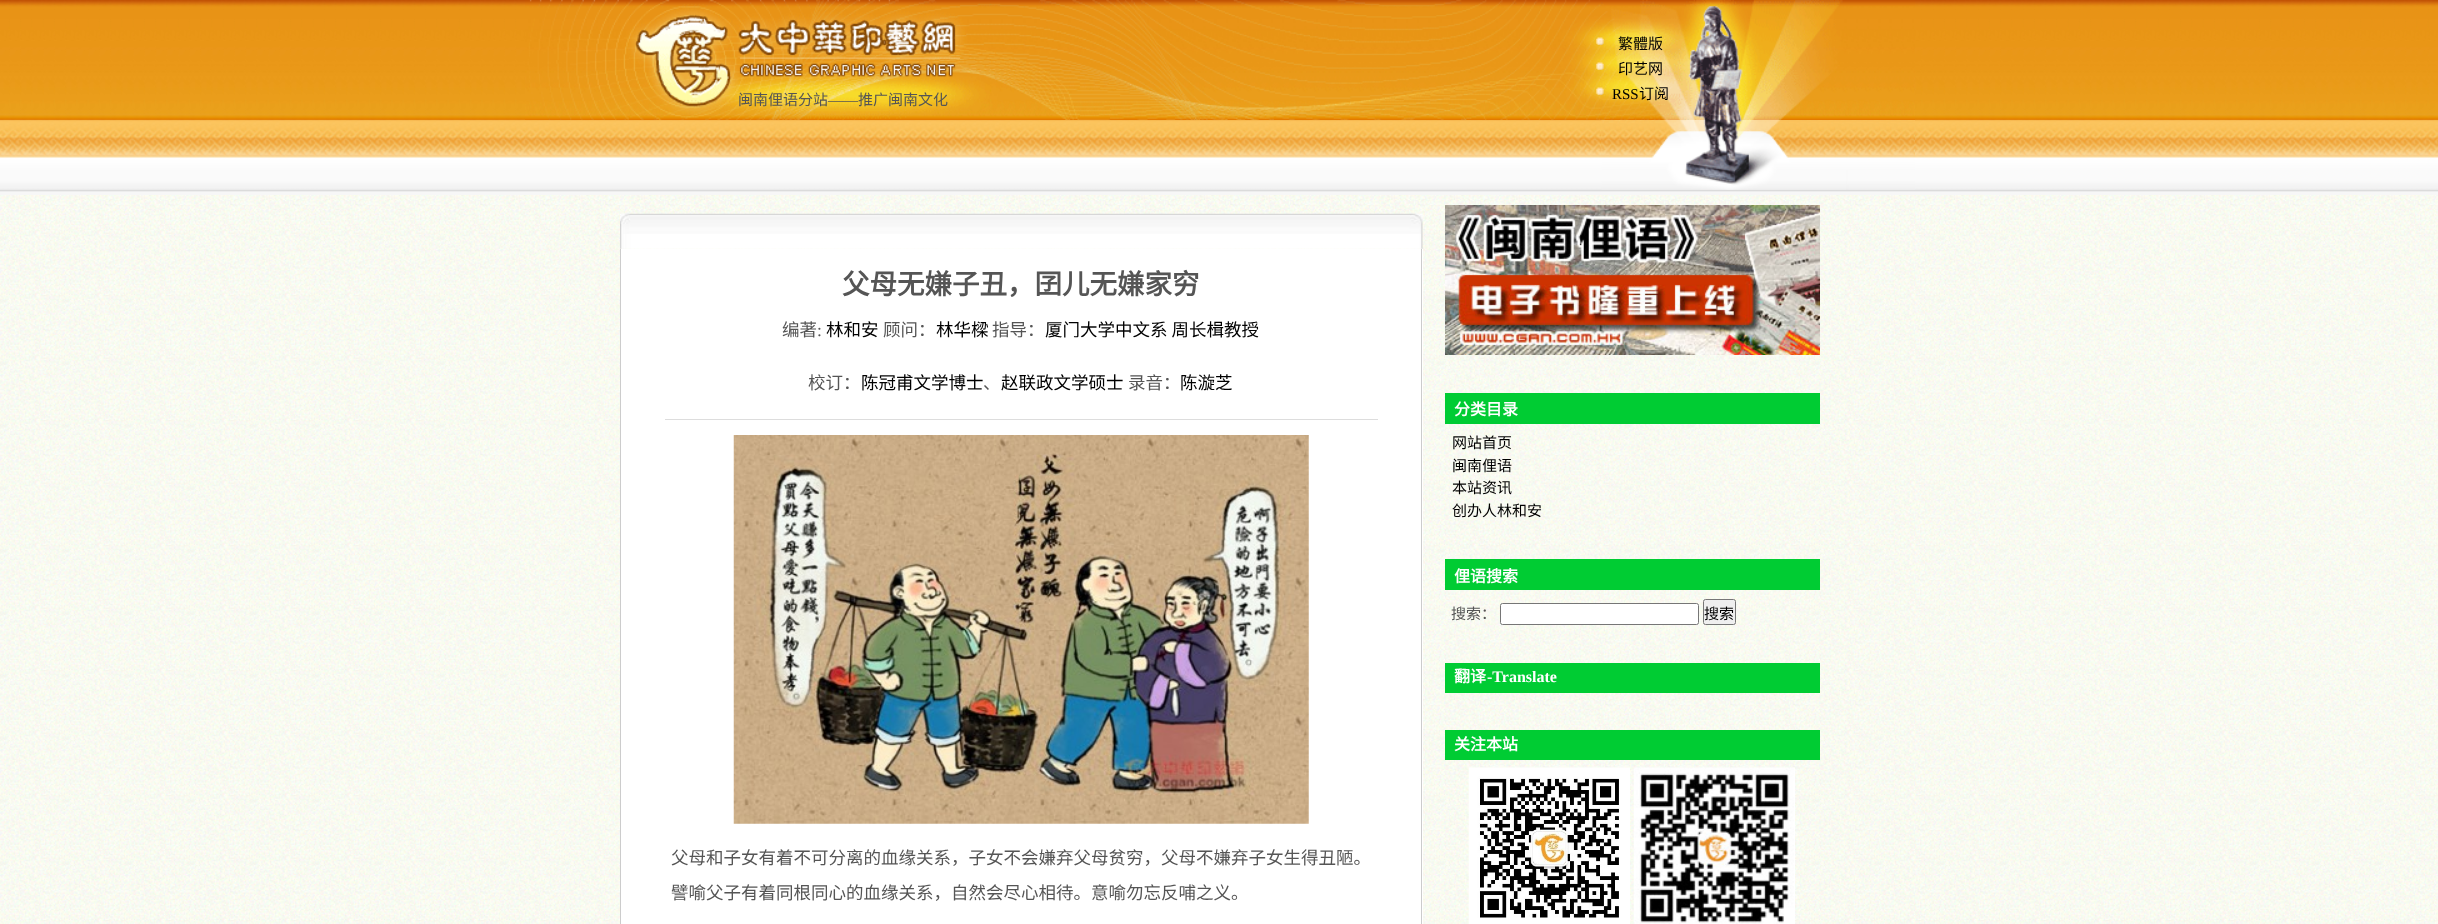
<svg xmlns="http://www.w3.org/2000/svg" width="2438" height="924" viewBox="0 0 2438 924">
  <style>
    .t1 { font: 15px Noto Sans CJK SC; fill: #000; }
    .t2 { font: 15px Liberation Serif; fill: #000; }
    .t3 { font: 15px Noto Sans CJK SC; fill: #555; }
    .t4 { font: 15px Liberation Serif; fill: #555; }
    .t5 { font: bold 27.5px Noto Sans CJK SC; fill: #555; }
    .t6 { font: 17.5px Noto Sans CJK SC; fill: #555; }
    .t7 { font: 17.5px Liberation Serif; fill: #555; }
    .t8 { font: 17.5px Noto Sans CJK SC; fill: #000; }
    .t9 { font: bold 16px Noto Sans CJK SC; fill: #fff; }
    .t10 { font: bold 16px Liberation Serif; fill: #fff; }
  </style>
  <rect width="100%" height="100%" fill="#fff"/>
  <image x="0" y="195" width="2438" height="729" href="images/1.png"/>
  <image x="0" y="0" width="2438" height="195" href="images/2.png"/>
  <image x="525" y="0" width="1390" height="120" href="images/3.png"/>
  <image x="1596" y="37" width="8" height="8" href="images/4.png"/>
  <image x="1596" y="62" width="8" height="8" href="images/5.png"/>
  <image x="1596" y="87" width="8" height="8" href="images/6.png"/>
  <text x="1618" y="49" class="t1">繁體版</text>
  <text x="1618" y="74" class="t1">印艺网</text>
  <text x="1612" y="99" class="t2">RSS</text>
  <text x="1639" y="99" class="t1">订阅</text>
  <text x="738" y="105" class="t3">闽南俚语分站</text>
  <text x="828" y="105" class="t4">——</text>
  <text x="858" y="105" class="t3">推广闽南文化</text>
  <image x="1601" y="120" width="314" height="70" href="images/7.png"/>
  <image x="620" y="213" width="803" height="36" href="images/8.png"/>
  <rect x="621" y="249" width="802" height="675" fill="#fff"/>
  <rect x="1421" y="249" width="1" height="675" fill="#ccc"/>
  <rect x="620" y="249" width="1" height="675" fill="#ccc"/>
  <text x="842" y="294" class="t5">父母无嫌子丑，囝儿无嫌家穷</text>
  <text x="782" y="336" class="t6">编著</text>
  <text x="817" y="336" class="t7">:</text>
  <text x="826" y="336" class="t8">林和安</text>
  <text x="883" y="336" class="t6">顾问：</text>
  <text x="936" y="336" class="t8">林华樑</text>
  <text x="992" y="336" class="t6">指导：</text>
  <text x="1045" y="336" class="t8">厦门大学中文系 周长楫教授</text>
  <text x="808" y="389" class="t6">校订：</text>
  <text x="861" y="389" class="t8">陈冠甫文学博士</text>
  <text x="983" y="389" class="t6">、</text>
  <text x="1001" y="389" class="t8">赵联政文学硕士</text>
  <text x="1128" y="389" class="t6">录音：</text>
  <text x="1180" y="389" class="t8">陈漩芝</text>
  <rect x="665" y="419" width="713" height="1" fill="#ddd"/>
  <image x="733" y="435" width="576" height="389" href="images/9.png"/>
  <text x="671" y="864" class="t6">父母和子女有着不可分离的血缘关系，子女不会嫌弃父母贫穷，父母不嫌弃子女生得丑陋。</text>
  <text x="671" y="899" class="t6">譬喻父子有着同根同心的血缘关系，自然会尽心相待。意喻勿忘反哺之义。</text>
  <image x="1445" y="205" width="375" height="150" href="images/10.png"/>
  <rect x="1445" y="393" width="375" height="31" fill="#0c3"/>
  <text x="1454" y="415" class="t9">分类目录</text>
  <text x="1452" y="448" class="t1">网站首页</text>
  <text x="1452" y="471" class="t1">闽南俚语</text>
  <text x="1452" y="493" class="t1">本站资讯</text>
  <text x="1452" y="516" class="t1">创办人林和安</text>
  <rect x="1445" y="559" width="375" height="31" fill="#0c3"/>
  <text x="1454" y="582" class="t9">俚语搜索</text>
  <text x="1451" y="619" class="t3">搜索：</text>
  <rect x="1500.5" y="603.5" width="198" height="21" rx="2" fill="#fff" stroke="#767676"/>
  <rect x="1703.5" y="599.5" width="32" height="25" rx="2" fill="#efefef" stroke="#767676"/>
  <text x="1704" y="619" class="t1">搜索</text>
  <rect x="1445" y="663" width="375" height="30" fill="#0c3"/>
  <text x="1454" y="682" class="t9">翻译</text>
  <text x="1487" y="682" class="t10">-Translate</text>
  <rect x="1445" y="730" width="375" height="30" fill="#0c3"/>
  <text x="1454" y="750" class="t9">关注本站</text>
  <image x="1468" y="767" width="162" height="157" href="images/11.png"/>
  <image x="1633" y="767" width="162" height="157" href="images/12.png"/>
</svg>
